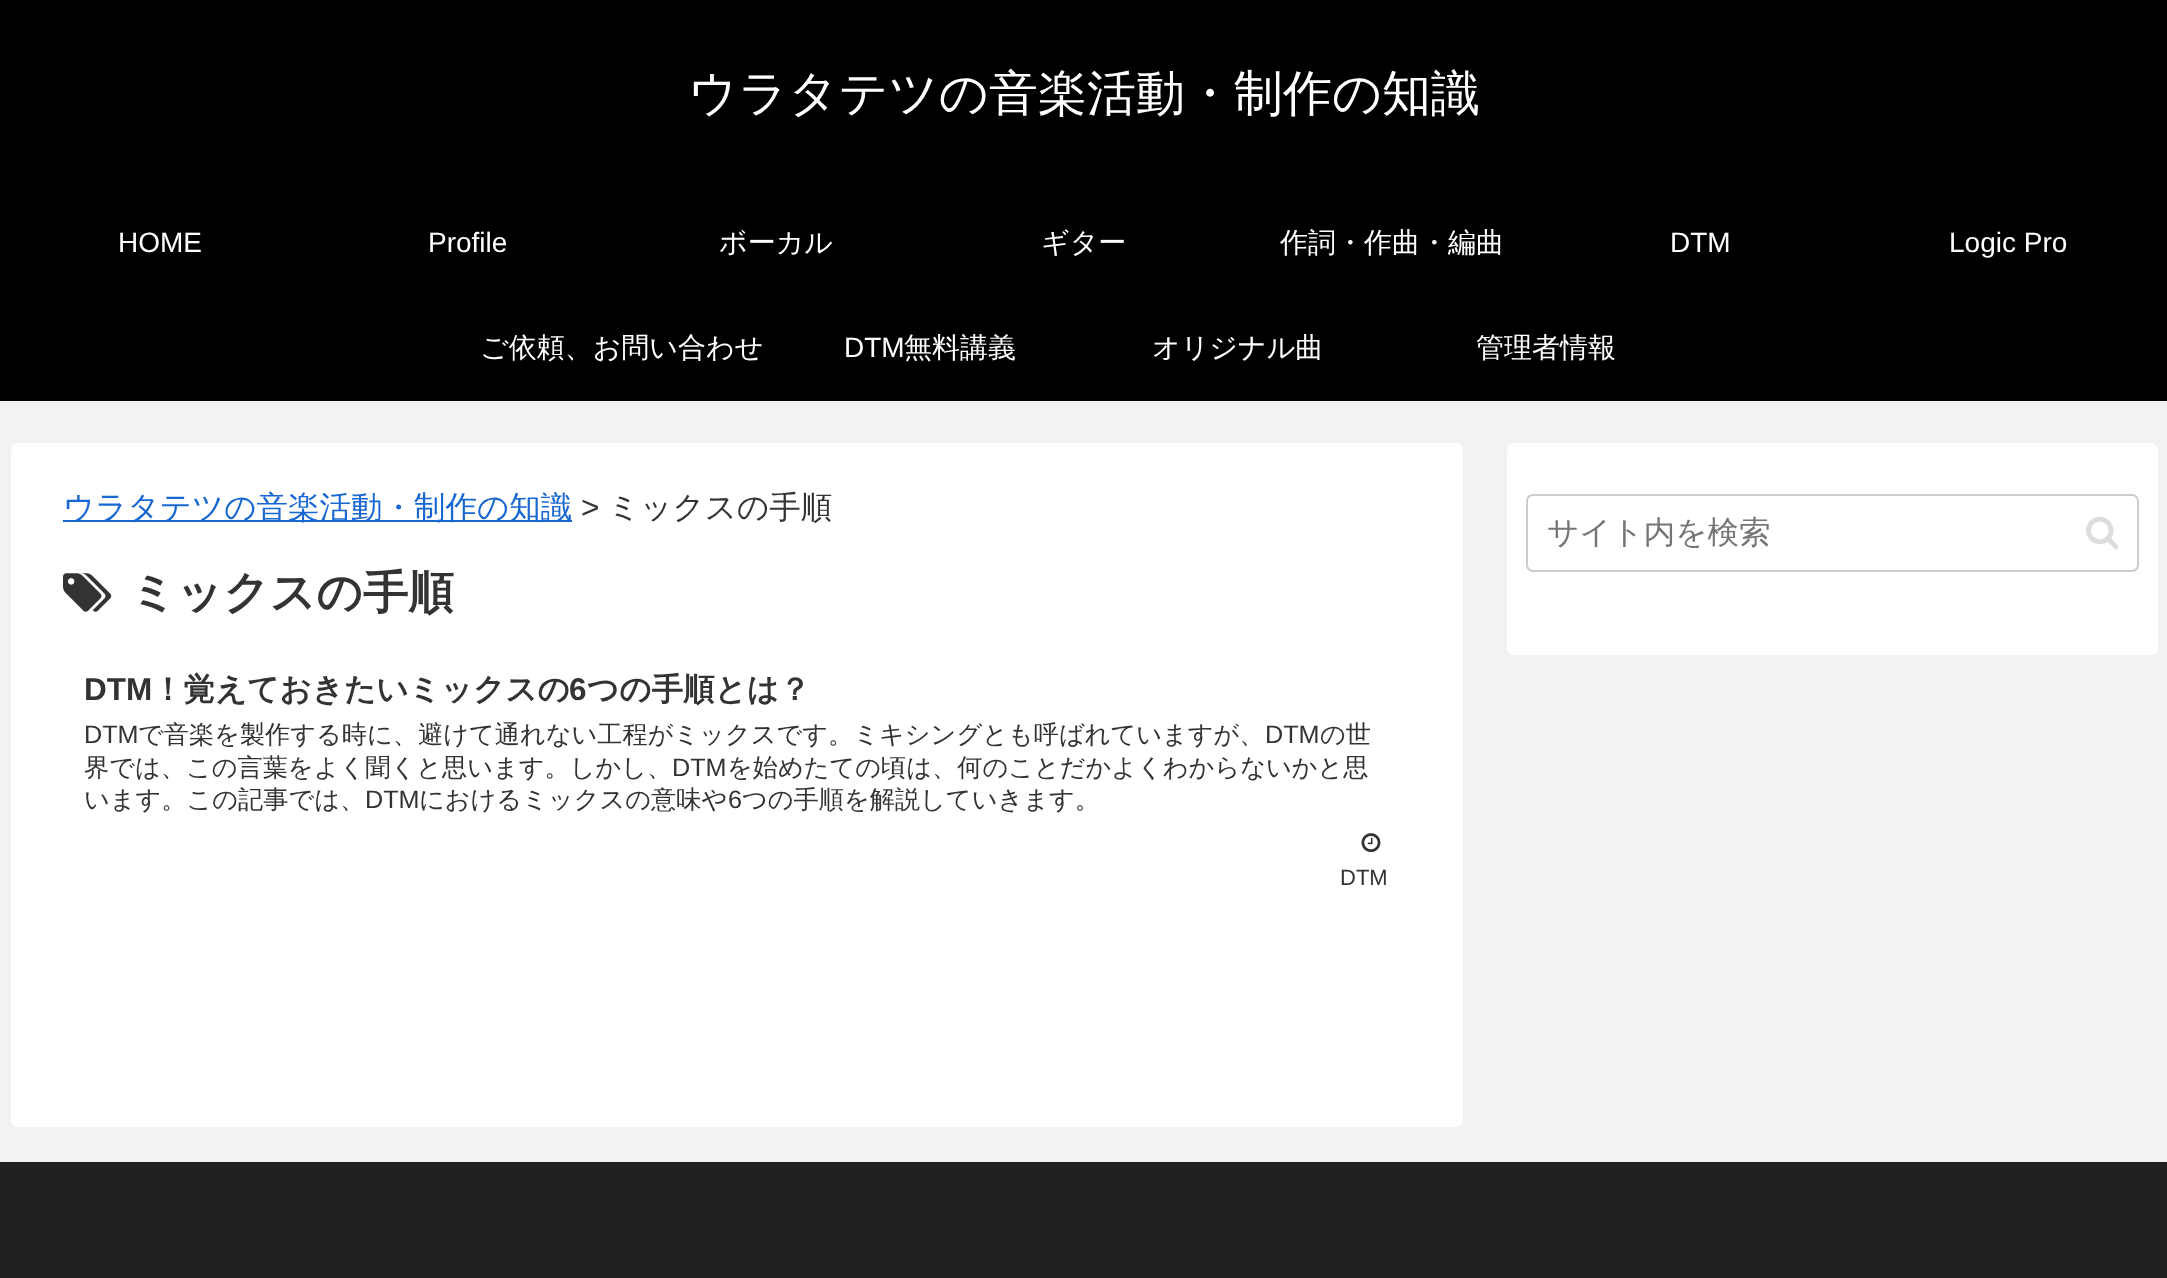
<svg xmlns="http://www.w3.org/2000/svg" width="2167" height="1278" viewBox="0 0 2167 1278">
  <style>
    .t1 { font: 500 49px WenQuanYi Zen Hei; fill: #fff; }
    .t2 { font: 28px Liberation Sans; fill: #fff; }
    .t3 { font: 500 28px WenQuanYi Zen Hei; fill: #fff; }
    .t4 { font: 500 31.5px WenQuanYi Zen Hei; fill: #1967d2; }
    .t5 { font: 31.5px Liberation Sans; fill: #333; }
    .t6 { font: 500 31.5px WenQuanYi Zen Hei; fill: #333; }
    .t7 { font: bold 45.5px WenQuanYi Zen Hei; fill: #333; }
    .t8 { font: bold 31.5px Liberation Sans; fill: #333; }
    .t9 { font: bold 31.5px WenQuanYi Zen Hei; fill: #333; }
    .t10 { font: 25.2px Liberation Sans; fill: #333; }
    .t11 { font: 500 25.2px WenQuanYi Zen Hei; fill: #333; }
    .t12 { font: 22px Liberation Sans; fill: #333; }
    .t13 { font: 500 31.5px WenQuanYi Zen Hei; fill: #757575; }
  </style>
  <rect width="100%" height="100%" fill="#f2f2f2"/>
  <rect x="0" y="0" width="2167" height="401" fill="#000"/>
  <text x="688" y="110" class="t1">ウラタテツの音楽活動・制作の知識</text>
  <text x="118" y="252" class="t2">HOME</text>
  <text x="428" y="252" class="t2">Profile</text>
  <text x="719" y="252" class="t3">ボーカル</text>
  <text x="1041" y="252" class="t3">ギター</text>
  <text x="1280" y="252" class="t3">作詞・作曲・編曲</text>
  <text x="1670" y="252" class="t2">DTM</text>
  <text x="1949" y="252" class="t2">Logic Pro</text>
  <text x="480" y="357" class="t3">ご依頼、お問い合わせ</text>
  <text x="844" y="357" class="t2">DTM</text>
  <text x="904" y="357" class="t3">無料講義</text>
  <text x="1152" y="357" class="t3">オリジナル曲</text>
  <text x="1476" y="357" class="t3">管理者情報</text>
  <rect x="11" y="443" width="1452" height="684" rx="7" fill="#fff"/>
  <rect x="63" y="520" width="509" height="2" fill="#1967d2"/>
  <text x="63" y="518" class="t4">ウラタテツの音楽活動・制作の知識</text>
  <text x="581" y="518" class="t5">&gt;</text>
  <text x="608" y="518" class="t6">ミックスの手順</text>
  <image x="63" y="573" width="49" height="39" href="images/1.png"/>
  <text x="130" y="608" class="t7">ミックスの手順</text>
  <text x="84" y="700" class="t8">DTM</text>
  <text x="152" y="700" class="t9">！覚えておきたいミックスの</text>
  <text x="569" y="700" class="t8">6</text>
  <text x="587" y="700" class="t9">つの手順とは？</text>
  <text x="84" y="743" class="t10">DTM</text>
  <text x="138" y="743" class="t11">で音楽を製作する時に、避けて通れない工程がミックスです。ミキシングとも呼ばれていますが、</text>
  <text x="1265" y="743" class="t10">DTM</text>
  <text x="1320" y="743" class="t11">の世</text>
  <text x="84" y="776" class="t11">界では、この言葉をよく聞くと思います。しかし、</text>
  <text x="672" y="776" class="t10">DTM</text>
  <text x="727" y="776" class="t11">を始めたての頃は、何のことだかよくわからないかと思</text>
  <text x="84" y="808" class="t11">います。この記事では、</text>
  <text x="365" y="808" class="t10">DTM</text>
  <text x="419" y="808" class="t11">におけるミックスの意味や</text>
  <text x="728" y="808" class="t10">6</text>
  <text x="742" y="808" class="t11">つの手順を解説していきます。</text>
  <image x="1361" y="833" width="20" height="20" href="images/2.png"/>
  <text x="1340" y="885" class="t12">DTM</text>
  <rect x="1507" y="443" width="651" height="212" rx="7" fill="#fff"/>
  <rect x="1527" y="495" width="611" height="76" rx="6" fill="none" stroke="#ccc" stroke-width="2"/>
  <text x="1547" y="543" class="t13">サイト内を検索</text>
  <image x="2086" y="516" width="33" height="34" href="images/3.png"/>
  <rect x="0" y="1162" width="2167" height="116" fill="#202020"/>
</svg>
